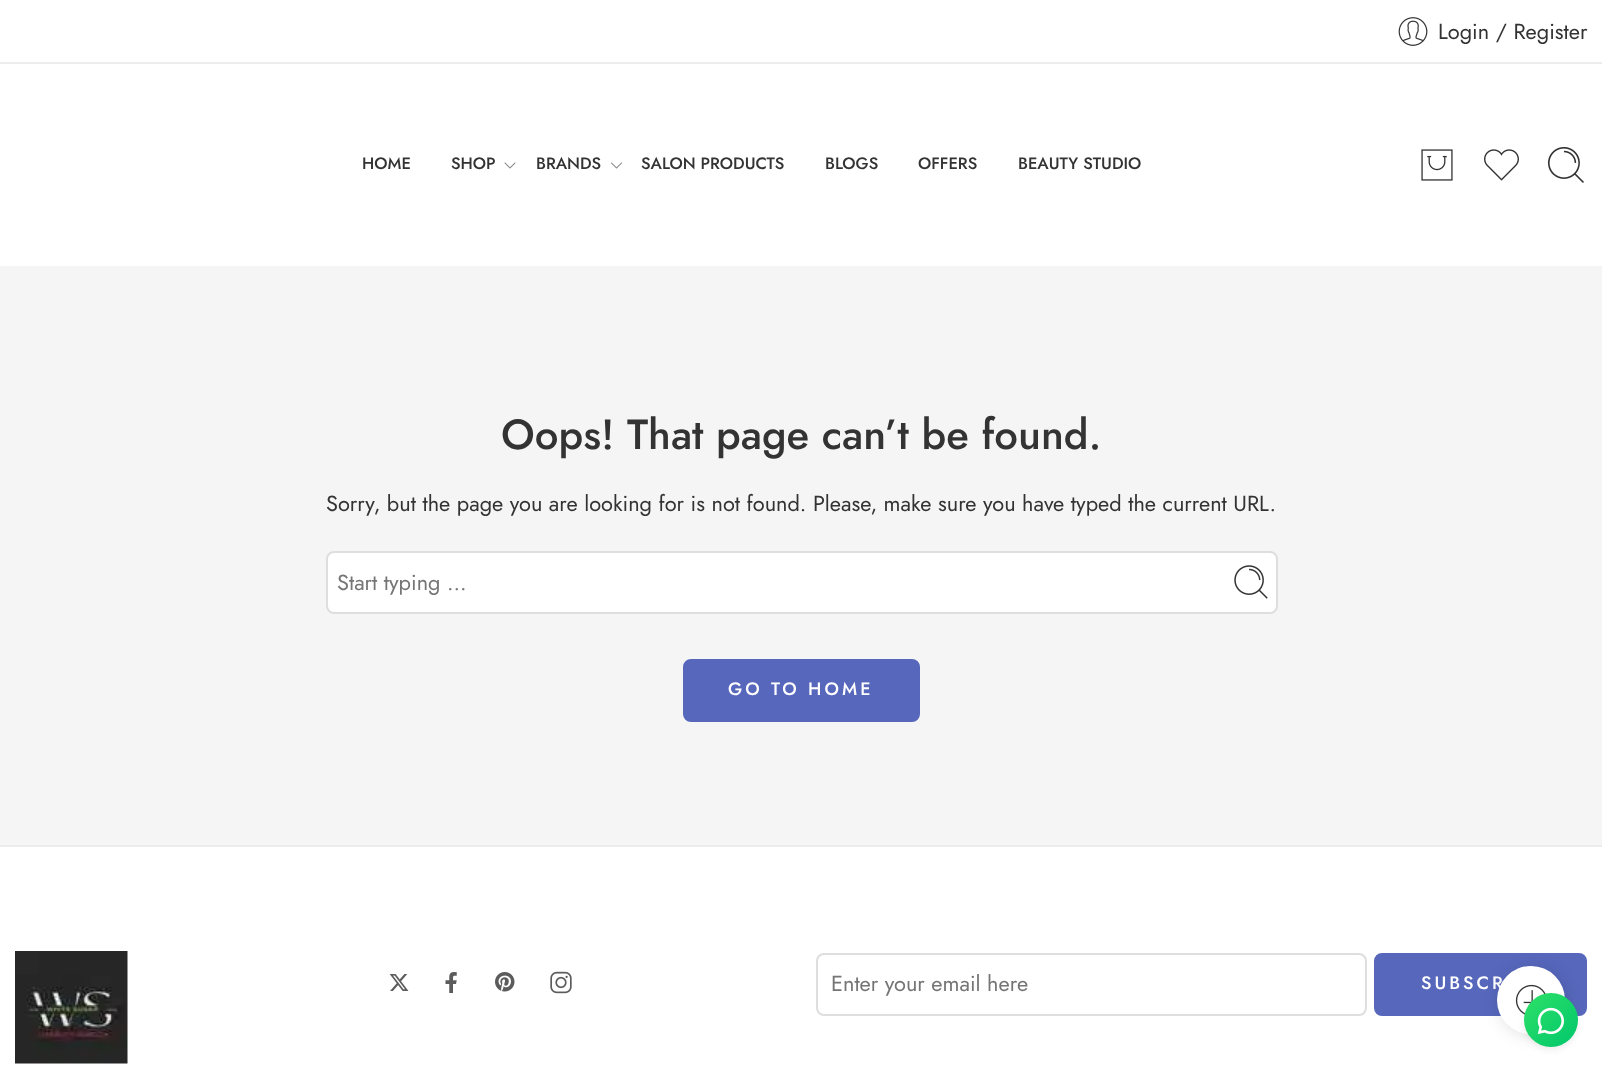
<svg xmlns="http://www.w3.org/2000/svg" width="1602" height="1070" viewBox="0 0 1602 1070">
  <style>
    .t1 { font: 21.75px Jost; fill: #333; }
    .t2 { font: 500 16.5px Jost; fill: #333; }
    .t3 { font: 500 42px Jost; fill: #333; }
    .t4 { font: 21.75px Jost; fill: #757575; }
    .t5 { font: 500 18px Jost; letter-spacing: 3px; fill: #fff; }
  </style>
  <defs>
    <linearGradient id="g1" gradientUnits="userSpaceOnUse" x1="1524" y1="993" x2="1578" y2="1047"><stop offset="0" stop-color="#2ee168"/><stop offset="1" stop-color="#00c66b"/></linearGradient>
  </defs>
  <rect width="100%" height="100%" fill="#fff"/>
  <rect x="0" y="62" width="1602" height="2" fill="#ececec"/>
  <image x="1398" y="17" width="30" height="29" href="images/1.png"/>
  <text x="1438" y="39" class="t1">Login / Register</text>
  <text x="362" y="169" class="t2">HOME</text>
  <text x="451" y="169" class="t2">SHOP</text>
  <image x="504" y="162" width="12" height="7" href="images/2.png"/>
  <text x="536" y="169" class="t2">BRANDS</text>
  <image x="611" y="162" width="11" height="7" href="images/3.png"/>
  <text x="641" y="169" class="t2">SALON PRODUCTS</text>
  <text x="825" y="169" class="t2">BLOGS</text>
  <text x="918" y="169" class="t2">OFFERS</text>
  <text x="1018" y="169" class="t2">BEAUTY STUDIO</text>
  <image x="1421" y="149" width="32" height="32" href="images/4.png"/>
  <image x="1484" y="149" width="35" height="32" href="images/5.png"/>
  <image x="1547" y="147" width="37" height="36" href="images/6.png"/>
  <rect x="0" y="266" width="1602" height="579" fill="#f5f5f5"/>
  <text x="501" y="449" class="t3">Oops! That page can’t be found.</text>
  <text x="326" y="511" class="t1">Sorry, but the page you are looking for is not found. Please, make sure you have typed the current URL.</text>
  <rect x="327" y="552" width="950" height="61" rx="7" fill="#fff" stroke="#dedede" stroke-width="2"/>
  <text x="337" y="590" class="t4">Start typing ...</text>
  <image x="1234" y="565" width="34" height="34" href="images/7.png"/>
  <rect x="684" y="660" width="235" height="61" rx="7" fill="#5767bc" stroke="#5767bc" stroke-width="2"/>
  <text x="728" y="695" class="t5">GO TO HOME</text>
  <rect x="0" y="845" width="1602" height="2" fill="#ececec"/>
  <image x="15" y="951" width="113" height="113" href="images/8.png"/>
  <image x="389" y="974" width="20" height="17" href="images/9.png"/>
  <image x="445" y="972" width="12" height="21" href="images/10.png"/>
  <image x="495" y="972" width="20" height="20" href="images/11.png"/>
  <image x="550" y="971" width="22" height="23" href="images/12.png"/>
  <rect x="817" y="954" width="549" height="61" rx="7" fill="none" stroke="#dedede" stroke-width="2"/>
  <text x="831" y="991" class="t4">Enter your email here</text>
  <rect x="1375" y="954" width="211" height="61" rx="7" fill="#5767bc" stroke="#5767bc" stroke-width="2"/>
  <text x="1421" y="989" class="t5">SUBSCR</text>
  <rect x="1497" y="966" width="71" height="71" rx="35.5" fill="#0000001a" filter="blur(7.5px)"/>
  <circle cx="1531" cy="1000" r="34" fill="#fff"/>
  <image x="1515" y="984" width="31" height="31" href="images/13.png"/>
  <rect x="1524" y="996" width="54" height="54" rx="27" fill="#00000012" filter="blur(3px)"/>
  <circle cx="1551" cy="1020" r="27" fill="url(#g1)"/>
  <image x="1537" y="1007" width="27" height="28" href="images/14.png"/>
</svg>
